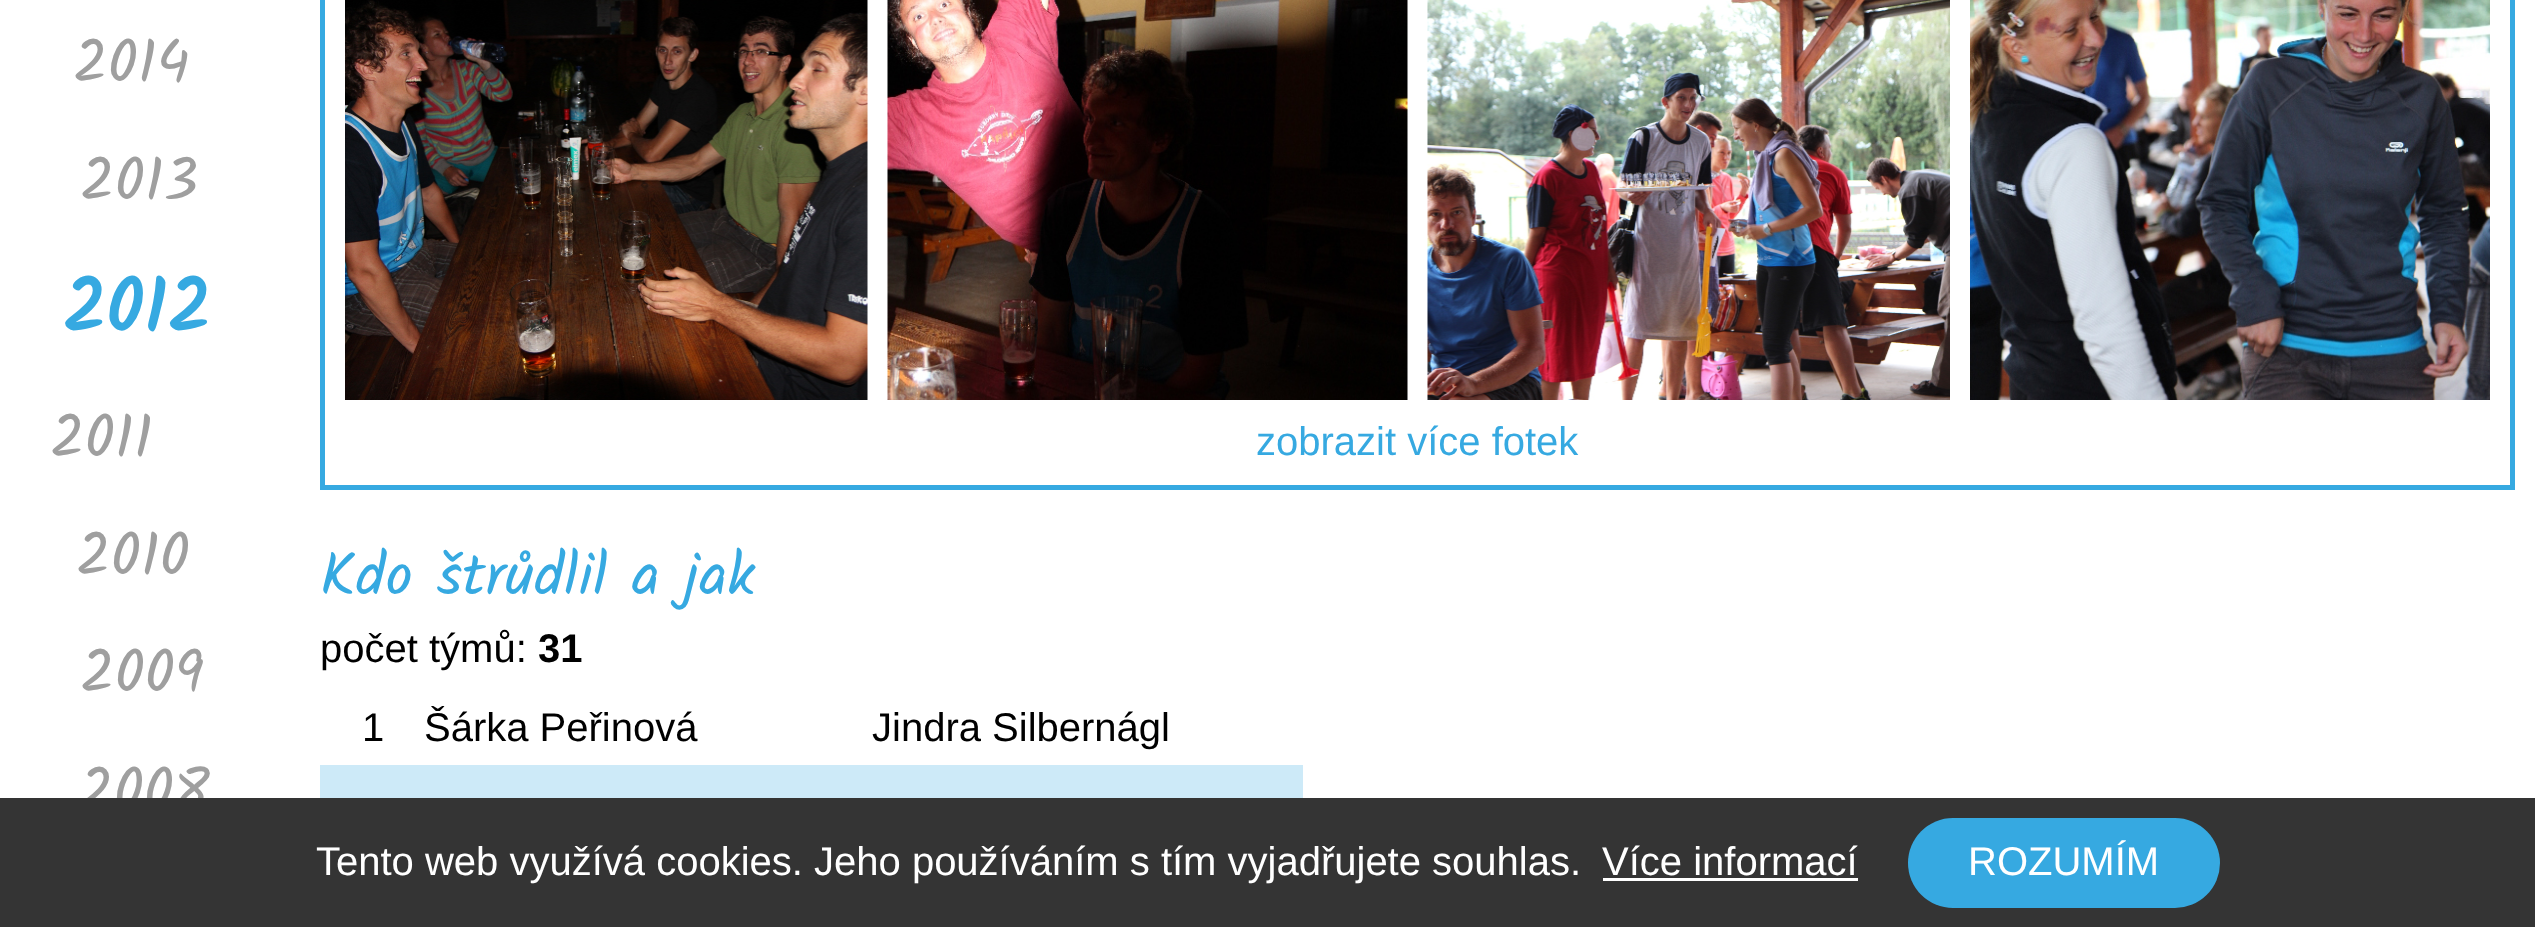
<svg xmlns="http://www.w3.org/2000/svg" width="2535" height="927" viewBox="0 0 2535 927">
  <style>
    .t1 { font: 60px Kalam; fill: #9f9f9f; }
    .t2 { font: bold 75px Kalam; fill: #36a9e1; }
    .t3 { font: 40px Liberation Sans; fill: #36a9e1; }
    .t4 { font: 60px Kalam; fill: #36a9e1; }
    .t5 { font: 40px Liberation Sans; fill: #000; }
    .t6 { font: bold 40px Liberation Sans; fill: #000; }
    .t7 { font: 40px Liberation Sans; fill: #fff; }
  </style>
  <rect width="100%" height="100%" fill="#fff"/>
  <text x="73" y="82" class="t1">2014</text>
  <text x="80" y="200" class="t1">2013</text>
  <text x="62" y="332" class="t2">2012</text>
  <text x="50" y="457" class="t1">2011</text>
  <text x="76" y="575" class="t1">2010</text>
  <text x="80" y="692" class="t1">2009</text>
  <text x="79" y="810" class="t1">2008</text>
  <rect x="322.5" y="-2.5" width="2190" height="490" fill="none" stroke="#36a9e1" stroke-width="5"/>
  <image x="345" y="0" width="523" height="400" href="images/1.png"/>
  <image x="887" y="0" width="521" height="400" href="images/2.png"/>
  <image x="1427" y="0" width="523" height="400" href="images/3.png"/>
  <image x="1970" y="0" width="520" height="400" href="images/4.png"/>
  <text x="1256" y="455" class="t3">zobrazit více fotek</text>
  <text x="320" y="595" class="t4">Kdo štrůdlil a jak</text>
  <text x="320" y="662" class="t5">počet týmů:</text>
  <text x="538" y="662" class="t6">31</text>
  <text x="362" y="741" class="t5">1</text>
  <text x="424" y="741" class="t5">Šárka Peřinová</text>
  <text x="872" y="741" class="t5">Jindra Silbernágl</text>
  <rect x="320" y="765" width="983" height="33" fill="#cdeaf8"/>
  <rect x="0" y="798" width="2535" height="129" fill="#343434"/>
  <text x="316" y="875" class="t7">Tento web využívá cookies. Jeho používáním s tím vyjadřujete souhlas.</text>
  <text x="1602" y="875" class="t7">Více informací</text>
  <rect x="1603" y="878" width="255" height="3" fill="#fff"/>
  <rect x="1908" y="818" width="312" height="90" rx="45" fill="#36a9e1"/>
  <text x="1968" y="875" class="t7">ROZUMÍM</text>
</svg>
